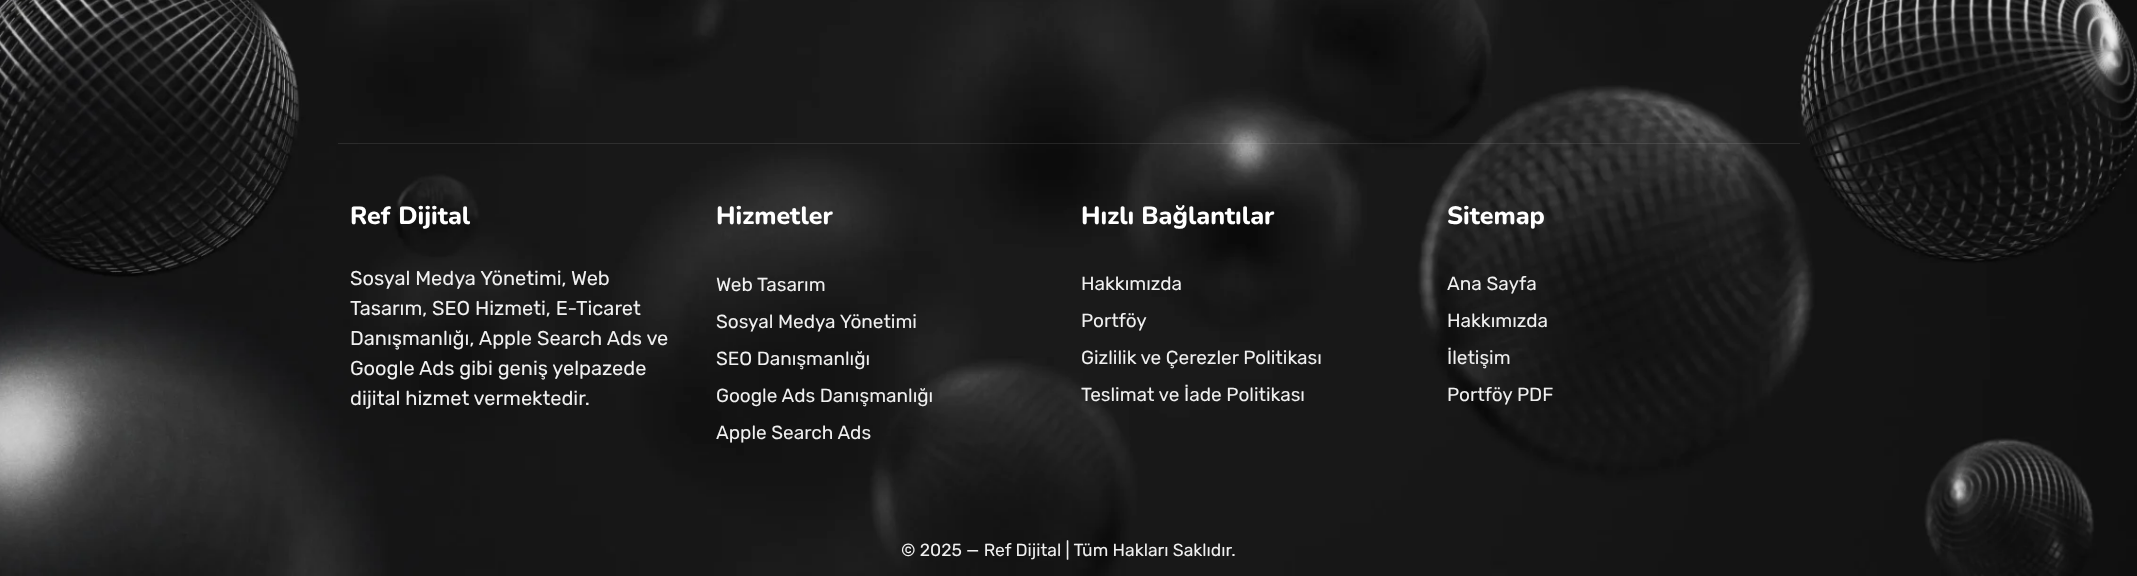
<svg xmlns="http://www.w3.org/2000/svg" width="2137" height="576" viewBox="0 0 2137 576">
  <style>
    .t1 { font: 800 25px Nunito; fill: #fff; }
    .t2 { font: 20px Rubik; fill: #f0f0f0; }
    .t3 { font: 19px Rubik; fill: #f0f0f0; }
    .t4 { font: 17.5px Rubik; fill: #f0f0f0; }
  </style>
  <rect width="100%" height="100%" fill="#fff"/>
  <image x="0" y="0" width="2137" height="576" href="images/1.png"/>
  <rect x="338" y="143" width="1462" height="1" fill="#ffffff1a"/>
  <text x="350" y="224" word-spacing="1" class="t1">Ref Dijital</text>
  <text x="350" y="285" class="t2">Sosyal Medya Yönetimi, Web</text>
  <text x="350" y="315" class="t2">Tasarım, SEO Hizmeti, E-Ticaret</text>
  <text x="350" y="345" class="t2">Danışmanlığı, Apple Search Ads ve</text>
  <text x="350" y="375" class="t2">Google Ads gibi geniş yelpazede</text>
  <text x="350" y="405" class="t2">dijital hizmet vermektedir.</text>
  <text x="716" y="224" class="t1">Hizmetler</text>
  <text x="716" y="291" class="t3">Web Tasarım</text>
  <text x="716" y="328" class="t3">Sosyal Medya Yönetimi</text>
  <text x="716" y="365" class="t3">SEO Danışmanlığı</text>
  <text x="716" y="402" class="t3">Google Ads Danışmanlığı</text>
  <text x="716" y="439" class="t3">Apple Search Ads</text>
  <text x="1081" y="224" class="t1">Hızlı Bağlantılar</text>
  <text x="1081" y="290" class="t3">Hakkımızda</text>
  <text x="1081" y="327" class="t3">Portföy</text>
  <text x="1081" y="364" class="t3">Gizlilik ve Çerezler Politikası</text>
  <text x="1081" y="401" class="t3">Teslimat ve İade Politikası</text>
  <text x="1447" y="224" class="t1">Sitemap</text>
  <text x="1447" y="290" class="t3">Ana Sayfa</text>
  <text x="1447" y="327" class="t3">Hakkımızda</text>
  <text x="1447" y="364" class="t3">İletişim</text>
  <text x="1447" y="401" class="t3">Portföy PDF</text>
  <text x="901" y="556" class="t4">© 2025 — Ref Dijital | Tüm Hakları Saklıdır.</text>
</svg>
